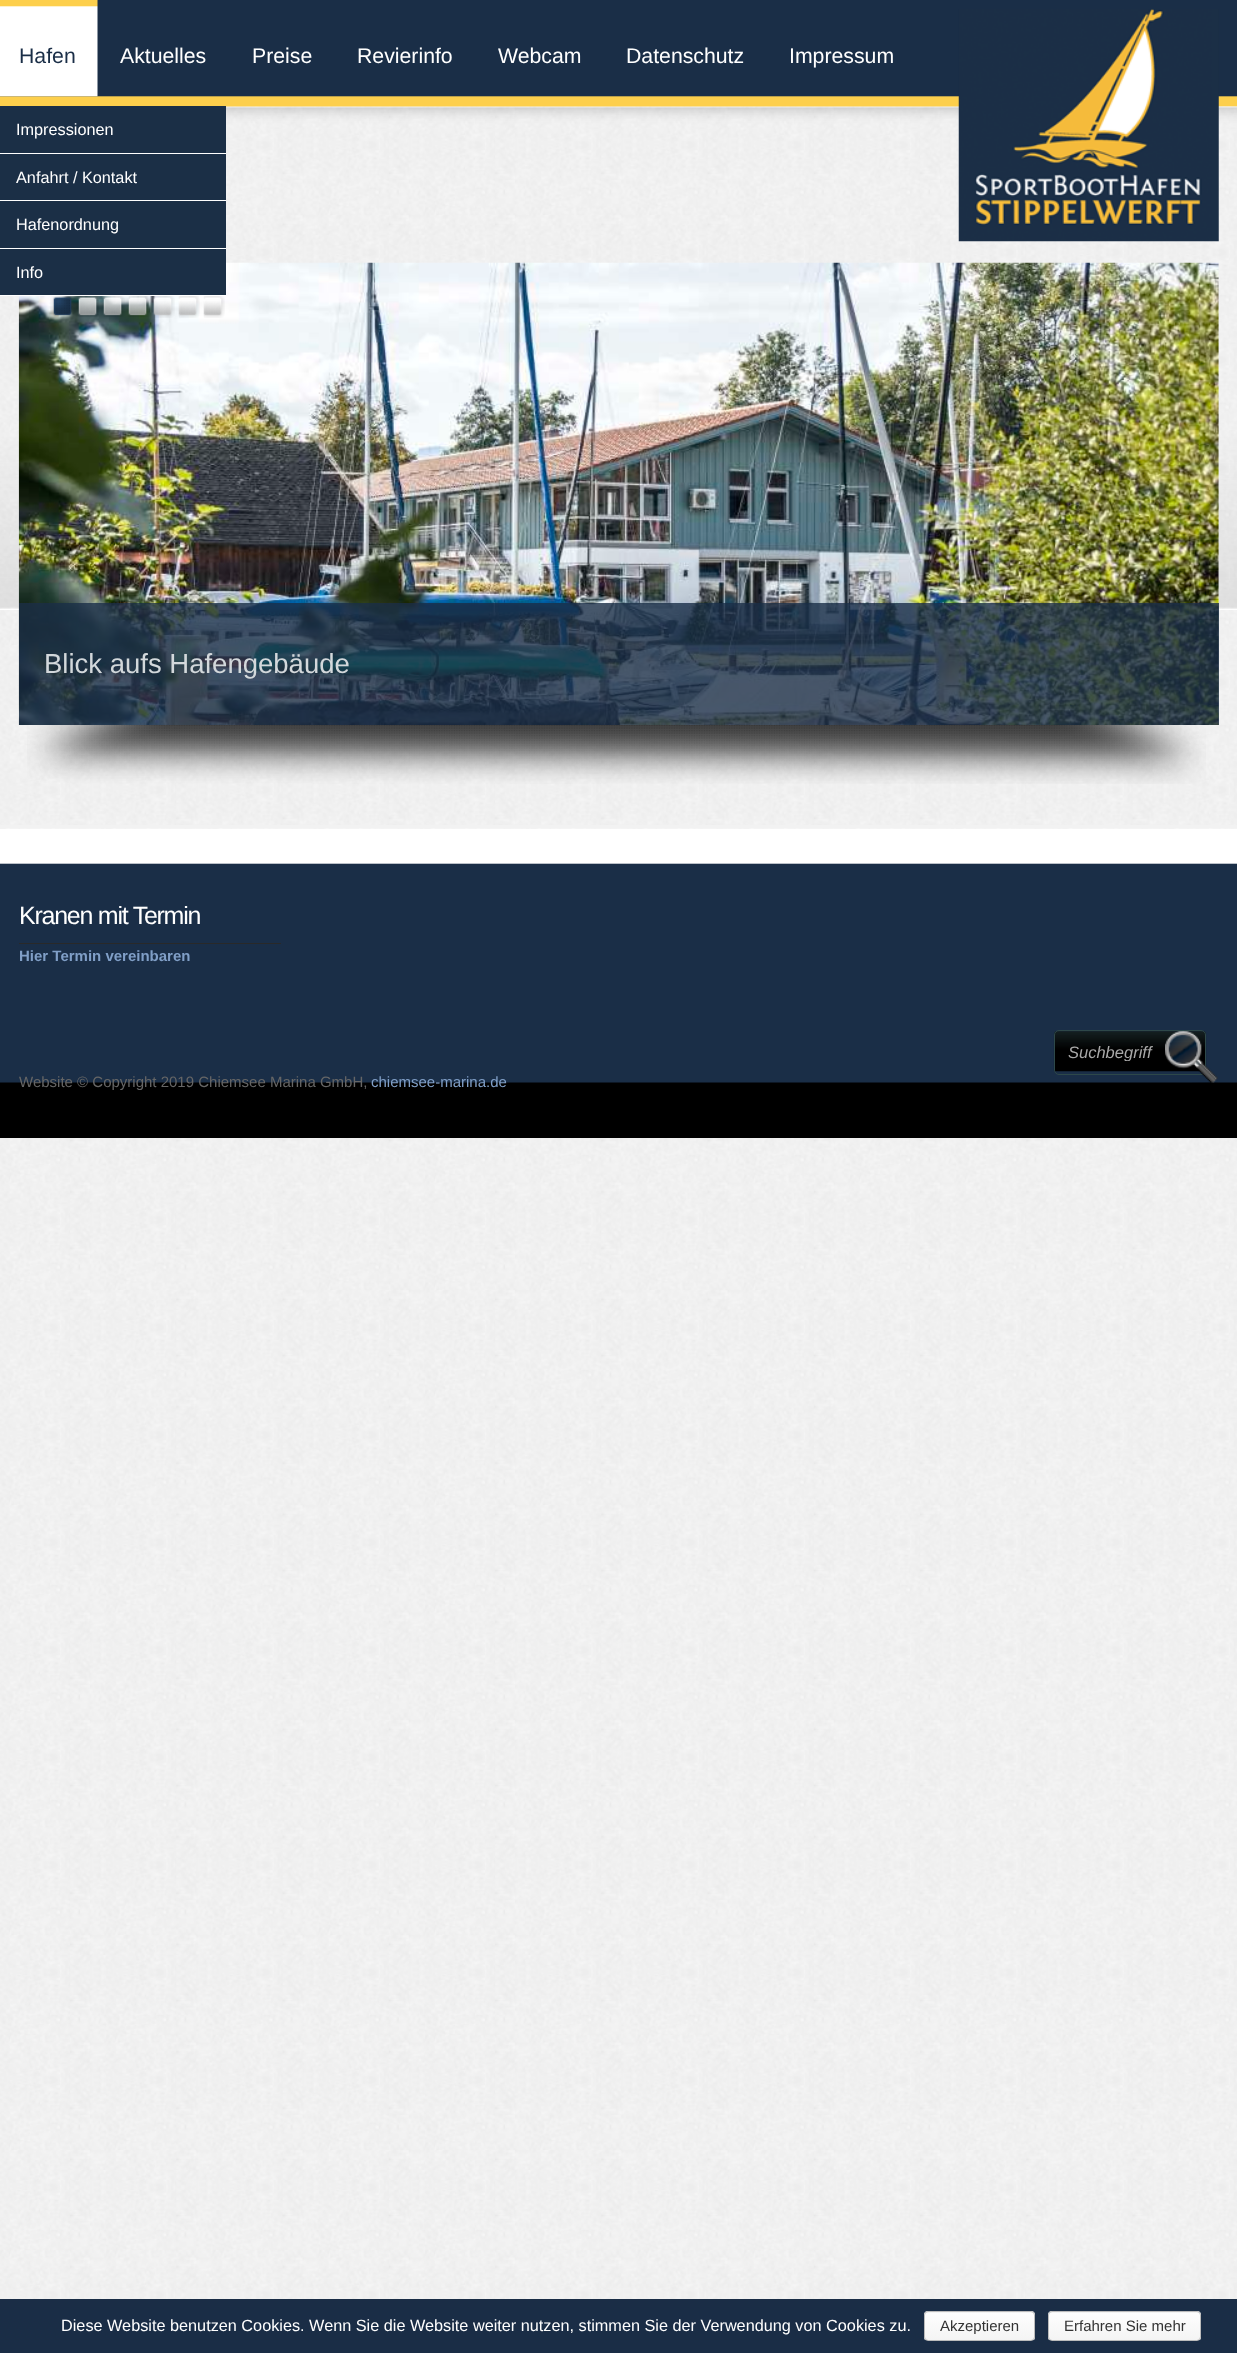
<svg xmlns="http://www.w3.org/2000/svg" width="1237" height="2353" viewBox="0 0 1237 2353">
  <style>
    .t1 { font: 21.25px Liberation Sans; fill: #1a2e47; }
    .t2 { font: 16.25px Liberation Sans; fill: #fff; }
    .t3 { font: 21.25px Liberation Sans; fill: #fff; }
    .t4 { font: 27.5px Liberation Sans; fill: #d3d8db; }
    .t5 { font: 25px Liberation Sans; letter-spacing: -1.25px; fill: #fff; }
    .t6 { font: bold 15px Liberation Sans; fill: #809fc7; }
    .t7 { font: italic 16.5px Liberation Sans; fill: #a8a8a8; }
    .t8 { font: 15px Liberation Sans; fill: #666; }
    .t9 { font: 15px Liberation Sans; fill: #809fc7; }
    .t10 { font: 15px Liberation Sans; fill: #333; }
  </style>
  <defs>
    <clipPath id="clip1"><rect x="1068" y="1043" width="125" height="18"/></clipPath>
    <clipPath id="clip2"><rect x="924" y="2311" width="111" height="30" rx="4"/></clipPath>
    <linearGradient id="g1" gradientUnits="userSpaceOnUse" x1="979" y1="2285" x2="979" y2="2313"><stop offset="0" stop-color="#fefefe"/><stop offset="1" stop-color="#f4f4f4"/></linearGradient>
    <linearGradient id="g2" gradientUnits="userSpaceOnUse" x1="979" y1="2313" x2="979" y2="2340"><stop offset="0" stop-color="#fefefe"/><stop offset="1" stop-color="#f4f4f4"/></linearGradient>
    <clipPath id="clip3"><rect x="1048" y="2311" width="153" height="30" rx="4"/></clipPath>
    <linearGradient id="g3" gradientUnits="userSpaceOnUse" x1="1124" y1="2285" x2="1124" y2="2313"><stop offset="0" stop-color="#fefefe"/><stop offset="1" stop-color="#f4f4f4"/></linearGradient>
    <linearGradient id="g4" gradientUnits="userSpaceOnUse" x1="1124" y1="2313" x2="1124" y2="2340"><stop offset="0" stop-color="#fefefe"/><stop offset="1" stop-color="#f4f4f4"/></linearGradient>
  </defs>
  <rect width="100%" height="100%" fill="#fff"/>
  <image x="0" y="106" width="1237" height="2193" href="images/1.png"/>
  <image x="0" y="0" width="1237" height="610" href="images/2.png"/>
  <image x="226" y="106" width="733" height="1" href="images/3.png"/>
  <image x="0" y="0" width="98" height="97" href="images/4.png"/>
  <text x="19" y="63" class="t1">Hafen</text>
  <rect x="0" y="106" width="226" height="47" fill="#1b2f46"/>
  <rect x="0" y="153" width="226" height="1" fill="#fff"/>
  <text x="16" y="135" class="t2">Impressionen</text>
  <rect x="0" y="154" width="226" height="46" fill="#1b2f46"/>
  <rect x="0" y="200" width="226" height="1" fill="#fff"/>
  <text x="16" y="183" class="t2">Anfahrt / Kontakt</text>
  <rect x="0" y="201" width="226" height="47" fill="#1b2f46"/>
  <rect x="0" y="248" width="226" height="1" fill="#fff"/>
  <text x="16" y="230" class="t2">Hafenordnung</text>
  <image x="18" y="262" width="1201" height="463" href="images/6.png"/>
  <rect x="0" y="249" width="226" height="46" fill="#1b2f46"/>
  <rect x="0" y="295" width="226" height="1" fill="#fff"/>
  <text x="16" y="278" class="t2">Info</text>
  <text x="120" y="63" class="t3">Aktuelles</text>
  <text x="252" y="63" class="t3">Preise</text>
  <text x="357" y="63" class="t3">Revierinfo</text>
  <text x="498" y="63" class="t3">Webcam</text>
  <text x="626" y="63" class="t3">Datenschutz</text>
  <text x="789" y="63" class="t3">Impressum</text>
  <image x="958" y="9" width="261" height="233" href="images/5.png"/>
  <image x="50" y="296" width="22" height="22" href="images/7.png"/>
  <image x="78" y="296" width="21" height="21" href="images/8.png"/>
  <image x="103" y="296" width="22" height="21" href="images/9.png"/>
  <image x="128" y="296" width="22" height="21" href="images/10.png"/>
  <image x="153" y="296" width="22" height="22" href="images/11.png"/>
  <image x="178" y="296" width="22" height="22" href="images/12.png"/>
  <image x="203" y="296" width="22" height="22" href="images/13.png"/>
  <rect x="19" y="603" width="1200" height="122" fill="#1a2e47cc"/>
  <text x="44" y="673" class="t4">Blick aufs Hafengebäude</text>
  <image x="27" y="725" width="1179" height="59" href="images/14.png"/>
  <rect x="0" y="825" width="1237" height="3" fill="#f2f2f2"/>
  <rect x="0" y="1082" width="1237" height="56" fill="#000"/>
  <image x="0" y="828" width="1237" height="255" href="images/15.png"/>
  <rect x="19" y="943" width="262" height="1" fill="#292929"/>
  <text x="19" y="924" class="t5">Kranen mit Termin</text>
  <text x="19" y="961" class="t6">Hier Termin vereinbaren</text>
  <image x="1053" y="1031" width="154" height="41" href="images/16.png"/>
  <rect x="1054.5" y="1030.5" width="151" height="44" rx="4.5" fill="none" stroke="#2e4849"/>
  <g clip-path="url(#clip1)">
    <text x="1068" y="1058" class="t7">Suchbegriff</text>
  </g>
  <image x="1165" y="1030" width="53" height="53" href="images/17.png"/>
  <text x="19" y="1087" class="t8">Website © Copyright 2019 Chiemsee Marina GmbH,</text>
  <text x="371" y="1087" class="t9">chiemsee-marina.de</text>
  <rect x="0" y="2299" width="1237" height="54" fill="#1a2d46"/>
  <text x="61" y="2331" class="t2">Diese Website benutzen Cookies. Wenn Sie die Website weiter nutzen, stimmen Sie der Verwendung von Cookies zu.</text>
  <g clip-path="url(#clip2)">
    <rect x="924" y="2311" width="111" height="2" fill="url(#g1)"/>
    <rect x="924" y="2313" width="111" height="27" fill="url(#g2)"/>
  </g>
  <rect x="924.5" y="2311.5" width="110" height="29" rx="3.5" fill="none" stroke="#bbb"/>
  <text x="940" y="2331" class="t10">Akzeptieren</text>
  <g clip-path="url(#clip3)">
    <rect x="1048" y="2311" width="153" height="2" fill="url(#g3)"/>
    <rect x="1048" y="2313" width="153" height="27" fill="url(#g4)"/>
  </g>
  <rect x="1048.5" y="2311.5" width="152" height="29" rx="3.5" fill="none" stroke="#bbb"/>
  <text x="1064" y="2331" class="t10">Erfahren Sie mehr</text>
</svg>
